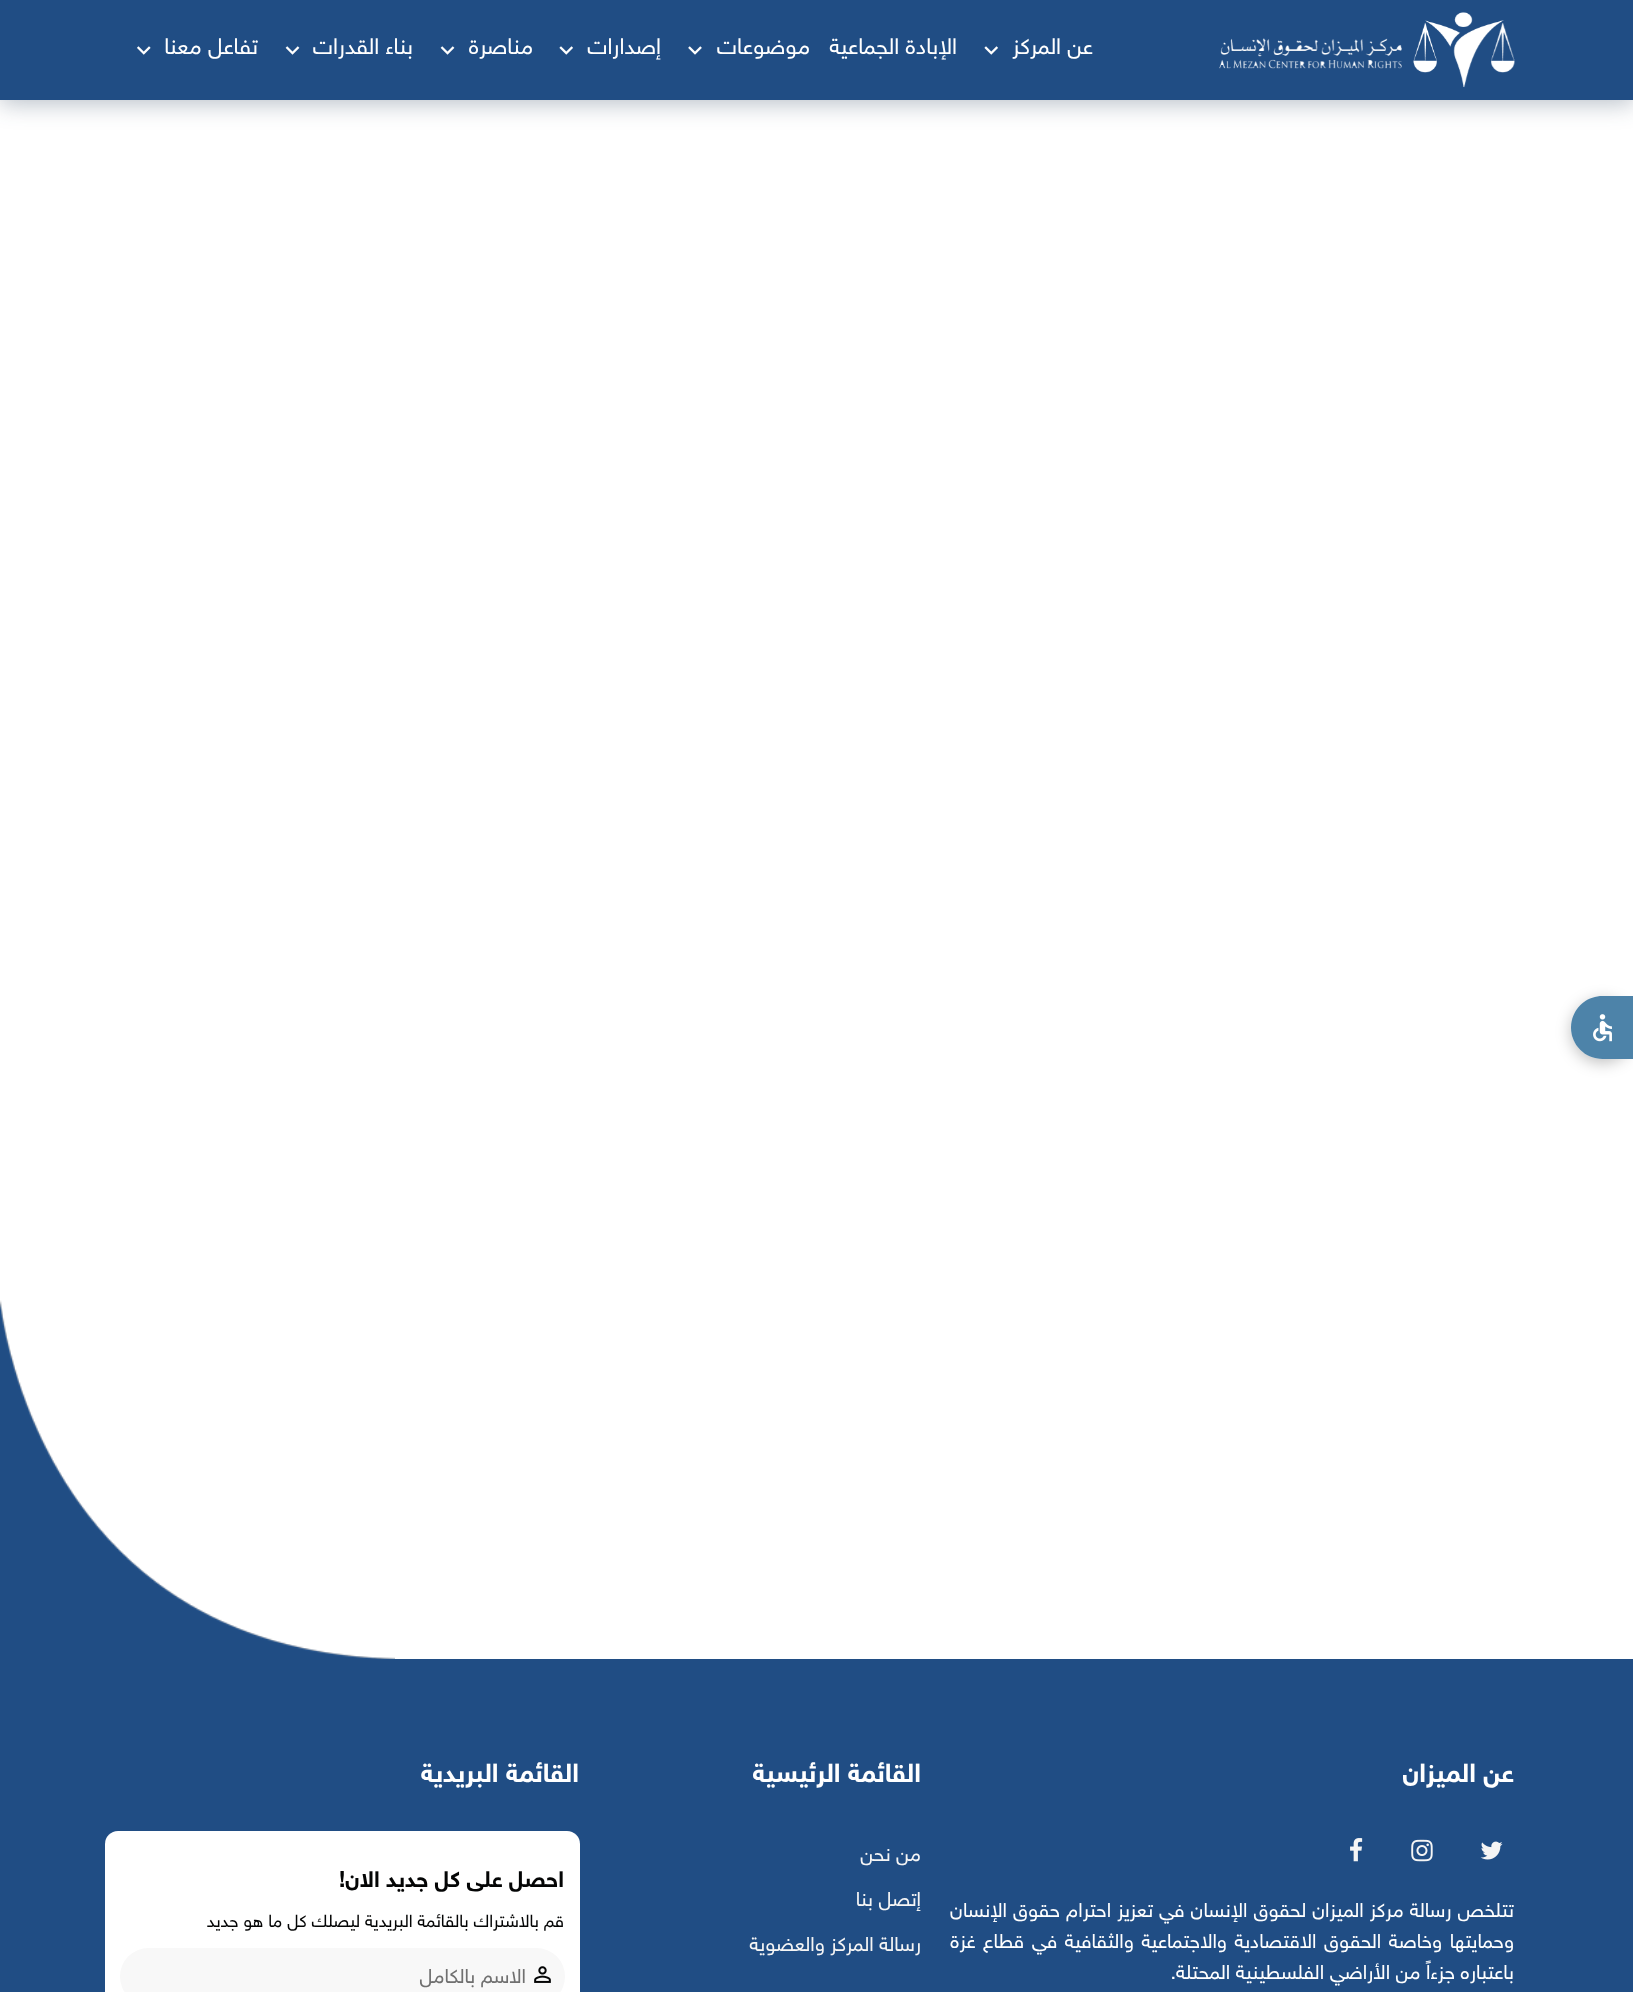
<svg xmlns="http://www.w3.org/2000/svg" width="1633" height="1992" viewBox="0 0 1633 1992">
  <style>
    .t1 { font: 22.5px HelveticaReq; direction: rtl; fill: #fff; }
    .t2 { font: bold 26.25px Helvetica; direction: rtl; fill: #fff; }
    .t3 { font: 20px HelveticaReq; direction: rtl; fill: #fff; }
    .t4 { font: 20px HelveticaReq; direction: rtl; fill: #f5f5f5; }
    .t5 { font: bold 22.5px Helvetica; direction: rtl; fill: #040505; }
    .t6 { font: 17.5px HelveticaReq; direction: rtl; fill: #040505; }
    .t7 { font: 20px HelveticaReq; direction: rtl; fill: #707070; }
  </style>
  <defs>
    <clipPath id="clip1"><path d="M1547 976H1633V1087H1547ZM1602.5 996H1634V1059H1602.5C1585 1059 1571 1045 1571 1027.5C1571 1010 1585 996 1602.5 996Z" clip-rule="evenodd"/></clipPath>
  </defs>
  <rect width="100%" height="100%" fill="#fff"/>
  <rect x="0" y="3" width="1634" height="100" fill="#1c345054" filter="blur(12.5px)"/>
  <rect x="0" y="0" width="1633" height="100" fill="#204d84"/>
  <image x="1219" y="12" width="296" height="76" href="images/1.png"/>
  <text x="1093" y="54" class="t1">عن المركز</text>
  <image x="984" y="46" width="14" height="9" href="images/2.png"/>
  <text x="957" y="54" class="t1">الإبادة الجماعية</text>
  <text x="810" y="54" class="t1">موضوعات</text>
  <image x="688" y="46" width="14" height="9" href="images/3.png"/>
  <text x="661" y="54" class="t1">إصدارات</text>
  <image x="559" y="46" width="14" height="9" href="images/2.png"/>
  <text x="533" y="54" class="t1">مناصرة</text>
  <image x="440" y="46" width="15" height="9" href="images/4.png"/>
  <text x="413" y="54" class="t1">بناء القدرات</text>
  <image x="285" y="46" width="15" height="9" href="images/4.png"/>
  <text x="258" y="54" class="t1">تفاعل معنا</text>
  <image x="137" y="46" width="14" height="9" href="images/5.png"/>
  <g clip-path="url(#clip1)">
    <rect x="1571" y="1000" width="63" height="63" rx="31.5" fill="#00000040" filter="blur(7.5px)"/>
  </g>
  <path d="M1602.5 996H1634V1059H1602.5C1585 1059 1571 1045 1571 1027.5C1571 1010 1585 996 1602.5 996Z" fill="#014f84b3"/>
  <image x="1593" y="1014" width="19" height="28" href="images/6.png"/>
  <rect x="0" y="1659" width="1633" height="333" fill="#204d84"/>
  <image x="0" y="1300" width="395" height="360" href="images/7.png"/>
  <text x="1514" y="1782" class="t2">عن الميزان</text>
  <image x="1480" y="1841" width="23" height="19" href="images/8.png"/>
  <image x="1411" y="1839" width="22" height="23" href="images/9.png"/>
  <image x="1350" y="1838" width="13" height="24" href="images/10.png"/>
  <text x="1514" y="1917" word-spacing="0.5" class="t3">تتلخص رسالة مركز الميزان لحقوق الإنسان في تعزيز احترام حقوق الإنسان</text>
  <text x="1514" y="1948" word-spacing="2" class="t3">وحمايتها وخاصة الحقوق الاقتصادية والاجتماعية والثقافية في قطاع غزة</text>
  <text x="1514" y="1979" class="t3">باعتباره جزءاً من الأراضي الفلسطينية المحتلة.</text>
  <text x="921" y="1782" class="t2">القائمة الرئيسية</text>
  <text x="921" y="1861" class="t4">من نحن</text>
  <text x="921" y="1906" class="t4">إتصل بنا</text>
  <text x="921" y="1951" class="t4">رسالة المركز والعضوية</text>
  <text x="579" y="1782" class="t2">القائمة البريدية</text>
  <rect x="105" y="1831" width="475" height="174" rx="13" fill="#fff"/>
  <text x="564" y="1887" class="t5">احصل على كل جديد الان!</text>
  <text x="564" y="1927" class="t6">قم بالاشتراك بالقائمة البريدية ليصلك كل ما هو جديد</text>
  <rect x="120" y="1948" width="445" height="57" rx="28.5" fill="#f8f8f8"/>
  <image x="534" y="1966" width="17" height="17" href="images/11.png"/>
  <text x="526" y="1983" class="t7">الاسم بالكامل</text>
</svg>
